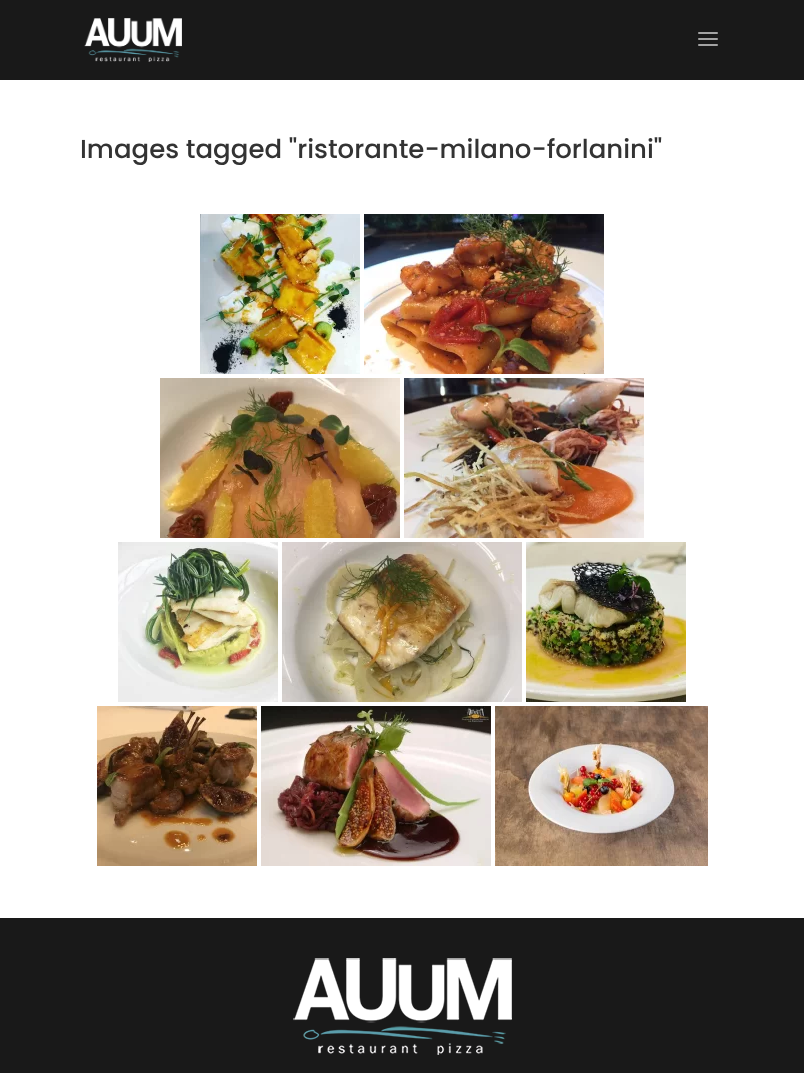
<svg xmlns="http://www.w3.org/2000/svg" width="804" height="1073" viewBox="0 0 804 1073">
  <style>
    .t1 { font: 500 26px Poppins; fill: #333; }
  </style>
  <rect width="100%" height="100%" fill="#fff"/>
  <rect x="0" y="0" width="804" height="80" fill="#191919"/>
  <image x="84" y="18" width="98" height="44" href="images/1.png"/>
  <image x="698" y="32" width="20" height="14" href="images/2.png"/>
  <text x="80" y="158" class="t1">Images tagged "ristorante-milano-forlanini"</text>
  <image x="200" y="214" width="160" height="160" href="images/3.png"/>
  <image x="364" y="214" width="240" height="160" href="images/4.png"/>
  <image x="160" y="378" width="240" height="160" href="images/5.png"/>
  <image x="404" y="378" width="240" height="160" href="images/6.png"/>
  <image x="118" y="542" width="160" height="160" href="images/7.png"/>
  <image x="282" y="542" width="240" height="160" href="images/8.png"/>
  <image x="526" y="542" width="160" height="160" href="images/9.png"/>
  <image x="97" y="706" width="160" height="160" href="images/10.png"/>
  <image x="261" y="706" width="230" height="160" href="images/11.png"/>
  <image x="495" y="706" width="213" height="160" href="images/12.png"/>
  <rect x="0" y="918" width="804" height="155" fill="#191919"/>
  <image x="293" y="958" width="219" height="97" href="images/13.png"/>
</svg>
